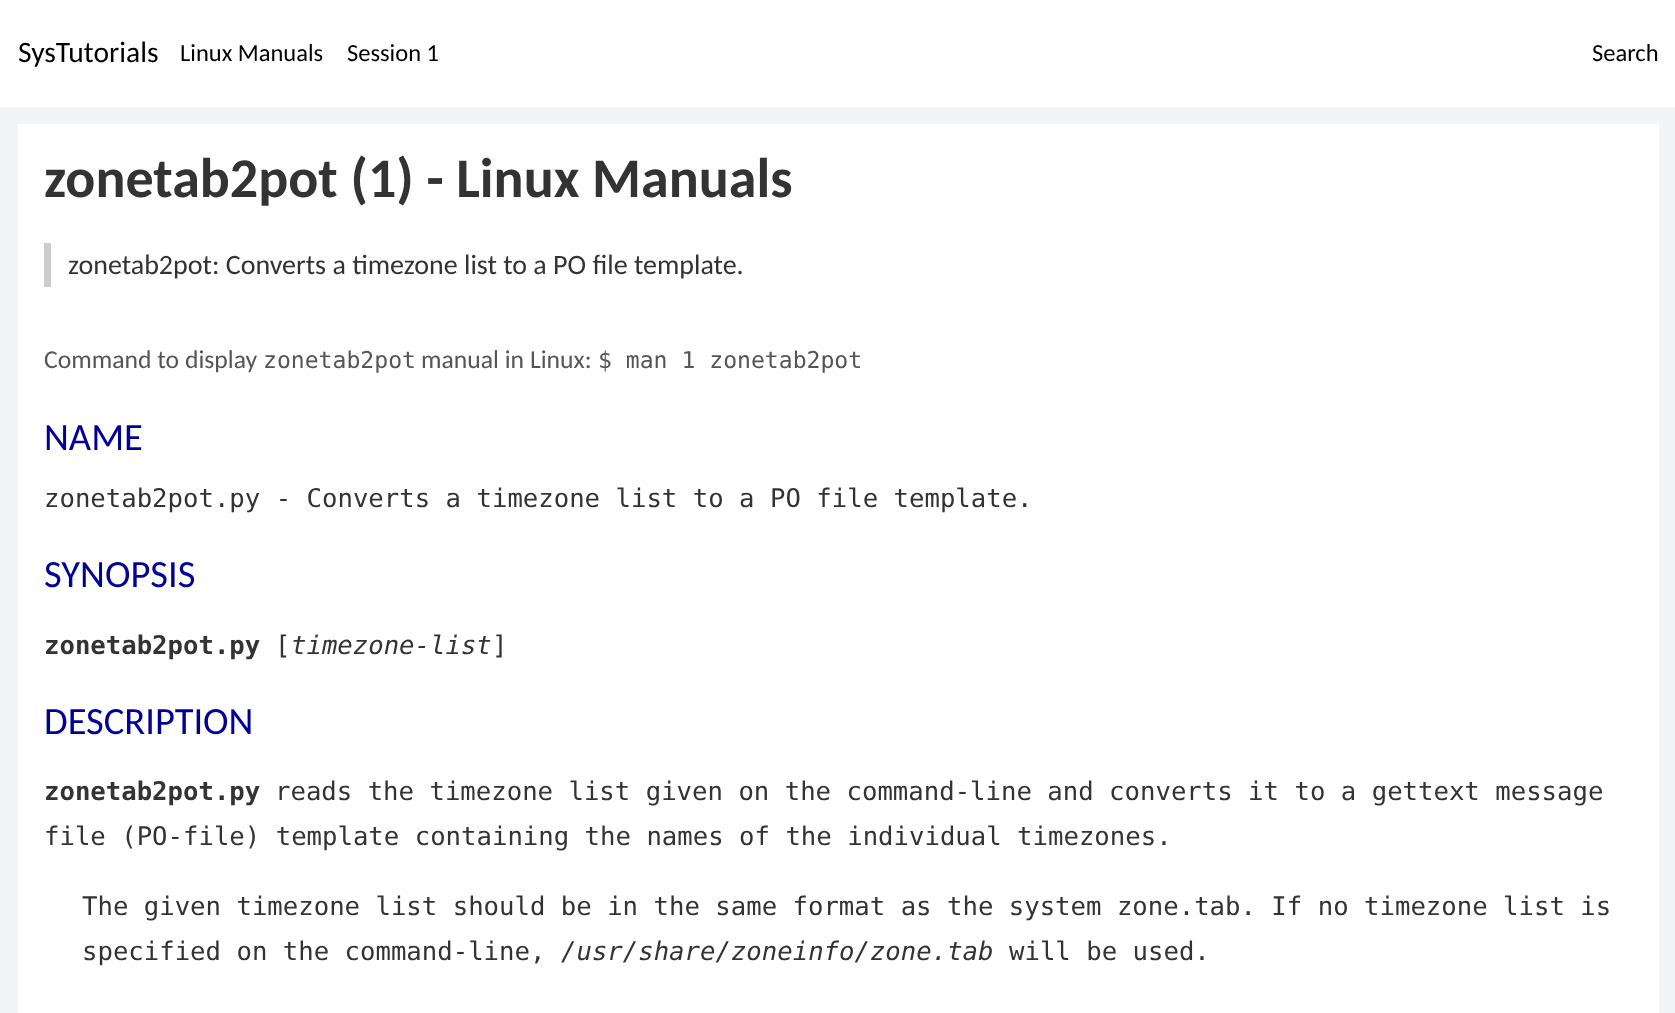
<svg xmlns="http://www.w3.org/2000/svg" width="1675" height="1013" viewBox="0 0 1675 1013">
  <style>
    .t1 { font: 29.5px Carlito; fill: #000; }
    .t2 { font: 24.5px Carlito; fill: #000; }
    .t3 { font: bold 56px Carlito; fill: #333; }
    .t4 { font: 28px Carlito; fill: #333; }
    .t5 { font: 25.67px Carlito; fill: #555; }
    .t6 { font: 23.1px DejaVu Sans Mono; fill: #555; }
    .t7 { font: 38.5px Carlito; fill: #009; }
    .t8 { font: 25.67px DejaVu Sans Mono; fill: #333; }
    .t9 { font: bold 25.67px DejaVu Sans Mono; fill: #333; }
    .t10 { font: italic 25.67px DejaVu Sans Mono; fill: #333; }
  </style>
  <rect width="100%" height="100%" fill="#f3f4f6"/>
  <rect x="0" y="0" width="1675" height="107" fill="#fff"/>
  <text x="18" y="62" class="t1">SysTutorials</text>
  <text x="180" y="61" class="t2">Linux Manuals</text>
  <text x="347" y="61" class="t2">Session 1</text>
  <text x="1592" y="61" class="t2">Search</text>
  <rect x="18" y="124" width="1641" height="889" fill="#fff"/>
  <text x="44" y="197" class="t3">zonetab2pot (1) - Linux Manuals</text>
  <rect x="44" y="243" width="7" height="44" fill="#ccc"/>
  <text x="68" y="274" class="t4">zonetab2pot: Converts a timezone list to a PO file template.</text>
  <text x="44" y="368" class="t5">Command to display</text>
  <text x="263" y="368" class="t6">zonetab2pot</text>
  <text x="421" y="368" class="t5">manual in Linux:</text>
  <text x="598" y="368" class="t6">$ man 1 zonetab2pot</text>
  <text x="44" y="450" class="t7">NAME</text>
  <text x="44" y="507" class="t8">zonetab2pot.py - Converts a timezone list to a PO file template.</text>
  <text x="44" y="587" class="t7">SYNOPSIS</text>
  <text x="44" y="654" class="t9">zonetab2pot.py</text>
  <text x="275" y="654" class="t8">[</text>
  <text x="291" y="654" class="t10">timezone-list</text>
  <text x="492" y="654" class="t8">]</text>
  <text x="44" y="734" class="t7">DESCRIPTION</text>
  <text x="44" y="800" class="t9">zonetab2pot.py</text>
  <text x="275" y="800" class="t8">reads the timezone list given on the command-line and converts it to a gettext message</text>
  <text x="44" y="845" class="t8">file (PO-file) template containing the names of the individual timezones.</text>
  <text x="82" y="915" class="t8">The given timezone list should be in the same format as the system zone.tab. If no timezone list is</text>
  <text x="82" y="960" class="t8">specified on the command-line,</text>
  <text x="561" y="960" class="t10">/usr/share/zoneinfo/zone.tab</text>
  <text x="1009" y="960" class="t8">will be used.</text>
</svg>
